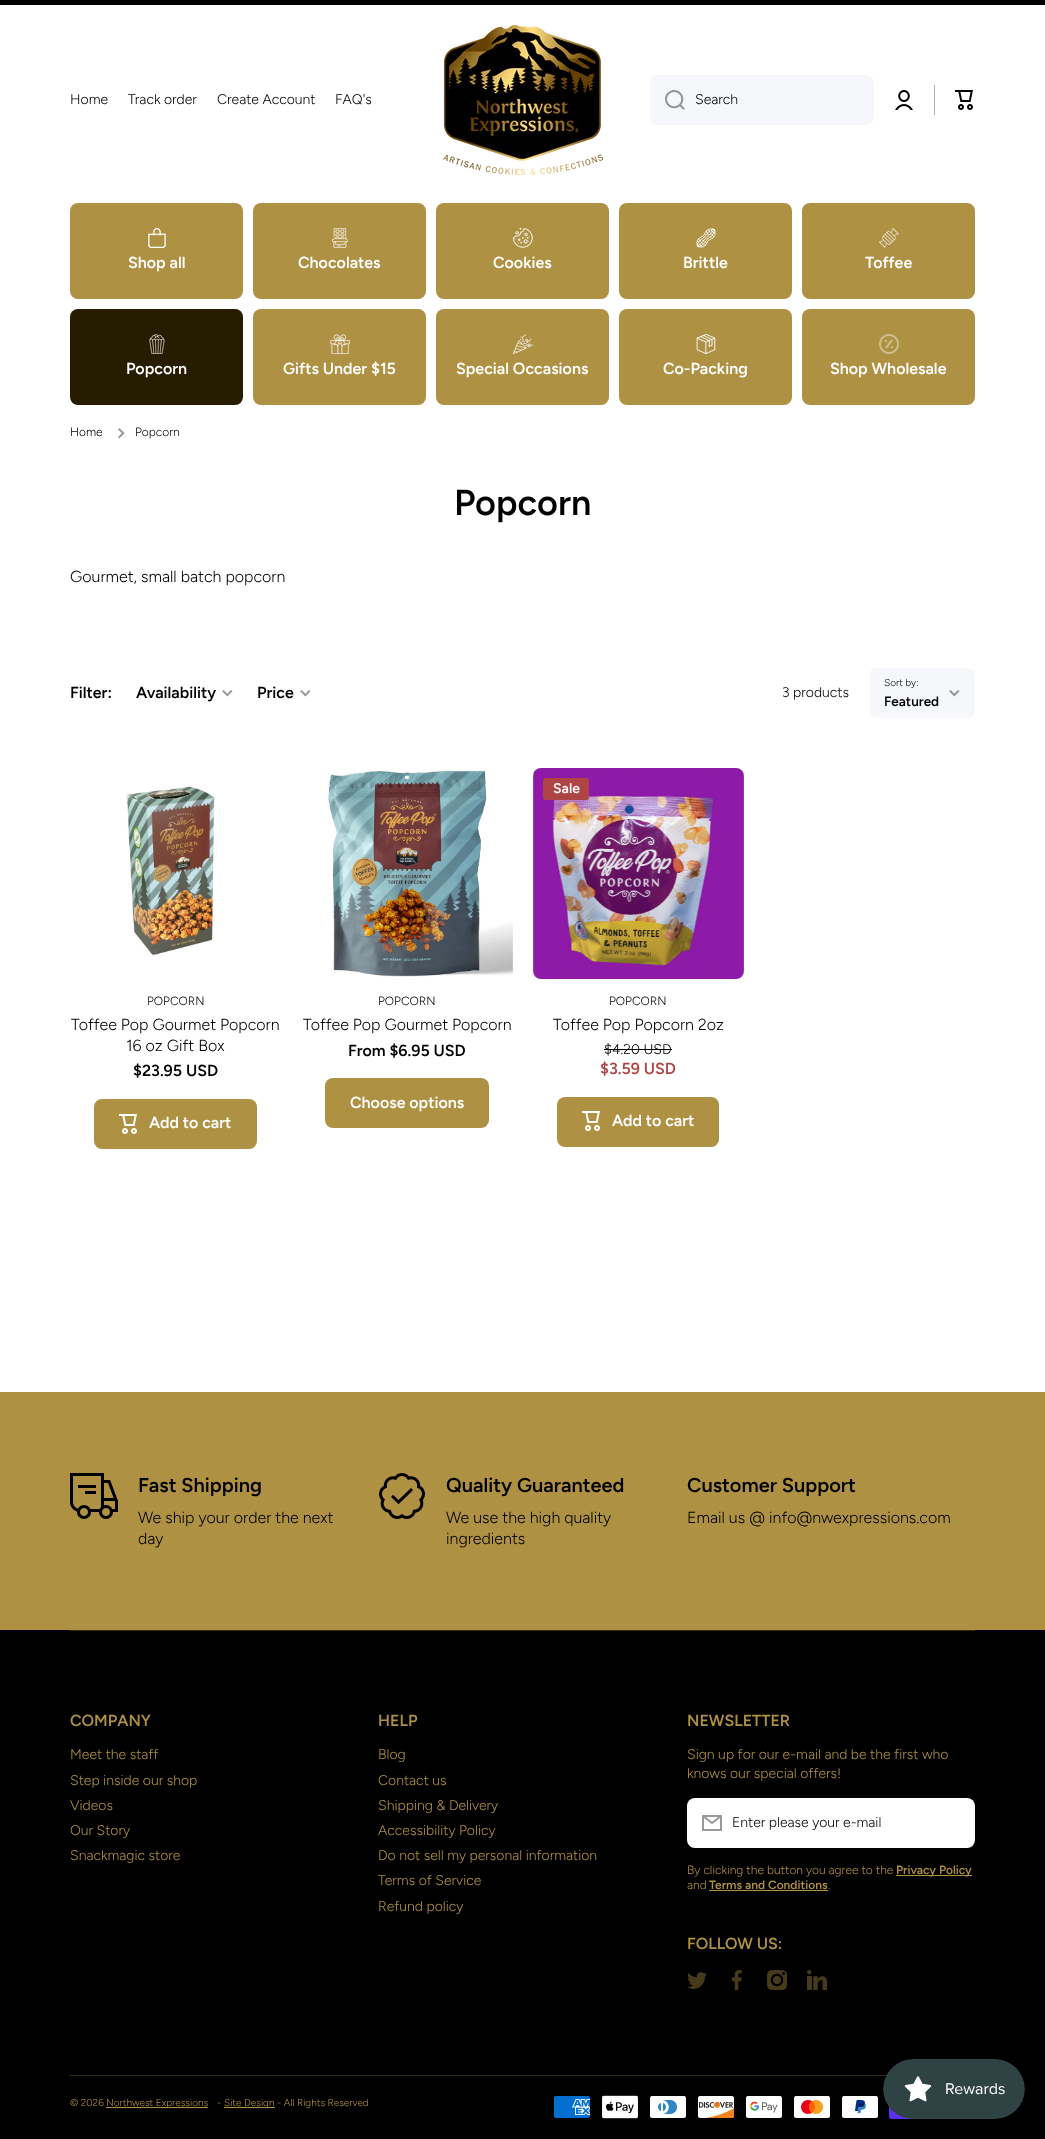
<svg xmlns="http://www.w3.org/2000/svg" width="1045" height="2139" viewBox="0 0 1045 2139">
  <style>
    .t1 { font: 300 14px Figtree; fill: #000; }
    .t2 { font: 600 16px Figtree; fill: #fff; }
    .t3 { font: 300 12px Figtree; fill: #000; }
    .t4 { font: 600 36px Figtree; fill: #000; }
    .t5 { font: 300 16px Figtree; fill: #000; }
    .t6 { font: 600 16px Figtree; fill: #000; }
    .t7 { font: 300 10px Figtree; fill: #000; }
    .t8 { font: 600 13.5px Figtree; fill: #000; }
    .t9 { font: 600 14px Figtree; fill: #fff; }
    .t10 { font: 600 16px Figtree; fill: #af4444; }
    .t11 { font: 600 20px Figtree; fill: #000; }
    .t12 { font: 600 16px Figtree; fill: #af9144; }
    .t13 { font: 300 14px Figtree; fill: #af9144; }
    .t14 { font: 300 12px Figtree; fill: #af9144; }
    .t15 { font: 600 12px Figtree; fill: #af9144; }
    .t16 { font: 300 10px Figtree; fill: #af9144; }
  </style>
  <rect width="100%" height="100%" fill="#fff"/>
  <rect x="0" y="0" width="1045" height="5" fill="#000"/>
  <text x="70" y="104" class="t1">Home</text>
  <text x="128" y="104" class="t1">Track order</text>
  <text x="217" y="104" class="t1">Create Account</text>
  <text x="335" y="104" class="t1">FAQ's</text>
  <image x="443" y="25" width="160" height="150" href="images/1.png"/>
  <rect x="650" y="75" width="224" height="50" rx="8" fill="#f6f7fa"/>
  <image x="665" y="90" width="20" height="20" href="images/2.png"/>
  <text x="695" y="104" class="t1">Search</text>
  <image x="895" y="90" width="18" height="20" href="images/3.png"/>
  <rect x="934" y="85" width="1" height="30" fill="#b3b3b3"/>
  <image x="955" y="90" width="18" height="20" href="images/4.png"/>
  <rect x="70" y="203" width="173" height="96" rx="8" fill="#af9144"/>
  <image x="148" y="228" width="18" height="20" href="images/5.png"/>
  <text x="128" y="268" class="t2">Shop all</text>
  <rect x="253" y="203" width="173" height="96" rx="8" fill="#af9144"/>
  <image x="332" y="228" width="16" height="20" href="images/6.png"/>
  <text x="298" y="268" class="t2">Chocolates</text>
  <rect x="436" y="203" width="173" height="96" rx="8" fill="#af9144"/>
  <image x="513" y="228" width="20" height="20" href="images/7.png"/>
  <text x="493" y="268" class="t2">Cookies</text>
  <rect x="619" y="203" width="173" height="96" rx="8" fill="#af9144"/>
  <image x="696" y="228" width="20" height="20" href="images/8.png"/>
  <text x="683" y="268" class="t2">Brittle</text>
  <rect x="802" y="203" width="173" height="96" rx="8" fill="#af9144"/>
  <image x="879" y="228" width="20" height="20" href="images/9.png"/>
  <text x="865" y="268" class="t2">Toffee</text>
  <rect x="70" y="309" width="173" height="96" rx="8" fill="#261c00"/>
  <image x="149" y="334" width="16" height="20" href="images/10.png"/>
  <text x="126" y="374" class="t2">Popcorn</text>
  <rect x="253" y="309" width="173" height="96" rx="8" fill="#af9144"/>
  <image x="330" y="334" width="20" height="20" href="images/11.png"/>
  <text x="283" y="374" class="t2">Gifts Under $15</text>
  <rect x="436" y="309" width="173" height="96" rx="8" fill="#af9144"/>
  <image x="513" y="334" width="20" height="20" href="images/12.png"/>
  <text x="456" y="374" class="t2">Special Occasions</text>
  <rect x="619" y="309" width="173" height="96" rx="8" fill="#af9144"/>
  <image x="696" y="334" width="20" height="20" href="images/13.png"/>
  <text x="663" y="374" class="t2">Co-Packing</text>
  <rect x="802" y="309" width="173" height="96" rx="8" fill="#af9144"/>
  <image x="879" y="334" width="20" height="20" href="images/14.png"/>
  <text x="830" y="374" class="t2">Shop Wholesale</text>
  <text x="70" y="436" class="t3">Home</text>
  <image x="118" y="428" width="7" height="11" href="images/15.png"/>
  <text x="135" y="436" class="t3">Popcorn</text>
  <text x="454" y="515" class="t4">Popcorn</text>
  <text x="70" y="582" class="t5">Gourmet, small batch popcorn</text>
  <text x="70" y="698" class="t6">Filter:</text>
  <text x="136" y="698" class="t6">Availability</text>
  <image x="222" y="690" width="11" height="7" href="images/16.png"/>
  <text x="257" y="698" class="t6">Price</text>
  <image x="300" y="690" width="11" height="7" href="images/16.png"/>
  <text x="782" y="697" class="t1">3 products</text>
  <rect x="869" y="668" width="106" height="50" rx="8" fill="#f6f7fa"/>
  <text x="884" y="686" class="t7">Sort by:</text>
  <image x="949" y="690" width="11" height="7" href="images/17.png"/>
  <text x="884" y="706" class="t8">Featured</text>
  <image x="126" y="786" width="89" height="170" href="images/18.png"/>
  <text x="147" y="1005" class="t3">POPCORN</text>
  <text x="71" y="1030" class="t5">Toffee Pop Gourmet Popcorn</text>
  <text x="126" y="1051" class="t5">16 oz Gift Box</text>
  <text x="133" y="1076" class="t6">$23.95 USD</text>
  <rect x="94" y="1099" width="163" height="50" rx="8" fill="#af9144"/>
  <image x="119" y="1114" width="18" height="20" href="images/19.png"/>
  <text x="149" y="1128" class="t2">Add to cart</text>
  <image x="328" y="770" width="185" height="207" href="images/20.png"/>
  <text x="378" y="1005" class="t3">POPCORN</text>
  <text x="303" y="1030" class="t5">Toffee Pop Gourmet Popcorn</text>
  <text x="348" y="1056" class="t6">From $6.95 USD</text>
  <rect x="325" y="1078" width="164" height="50" rx="8" fill="#af9144"/>
  <text x="350" y="1108" class="t2">Choose options</text>
  <image x="533" y="768" width="211" height="211" href="images/21.png"/>
  <rect x="543" y="778" width="46" height="22" rx="3" fill="#af4444"/>
  <text x="553" y="793" class="t9">Sale</text>
  <text x="609" y="1005" class="t3">POPCORN</text>
  <text x="553" y="1030" class="t5">Toffee Pop Popcorn 2oz</text>
  <text x="604" y="1054" class="t1">$4.20 USD</text>
  <rect x="604" y="1049" width="68" height="1" fill="#000"/>
  <text x="600" y="1074" class="t10">$3.59 USD</text>
  <rect x="557" y="1097" width="162" height="50" rx="8" fill="#af9144"/>
  <image x="582" y="1111" width="18" height="20" href="images/19.png"/>
  <text x="612" y="1126" class="t2">Add to cart</text>
  <rect x="0" y="1392" width="1045" height="238" fill="#af9144"/>
  <image x="70" y="1473" width="48" height="46" href="images/22.png"/>
  <text x="138" y="1492" class="t11">Fast Shipping</text>
  <text x="138" y="1523" class="t5">We ship your order the next</text>
  <text x="138" y="1544" class="t5">day</text>
  <image x="379" y="1473" width="46" height="46" href="images/23.png"/>
  <text x="446" y="1492" class="t11">Quality Guaranteed</text>
  <text x="446" y="1523" class="t5">We use the high quality</text>
  <text x="446" y="1544" class="t5">ingredients</text>
  <text x="687" y="1492" class="t11">Customer Support</text>
  <text x="687" y="1523" class="t5">Email us @ info@nwexpressions.com</text>
  <rect x="0" y="1630" width="1045" height="509" fill="#000"/>
  <rect x="70" y="1630" width="905" height="1" fill="#352c14"/>
  <text x="70" y="1726" class="t12">COMPANY</text>
  <text x="70" y="1759" class="t13">Meet the staff</text>
  <text x="70" y="1785" class="t13">Step inside our shop</text>
  <text x="70" y="1810" class="t13">Videos</text>
  <text x="70" y="1835" class="t13">Our Story</text>
  <text x="70" y="1860" class="t13">Snackmagic store</text>
  <text x="378" y="1726" class="t12">HELP</text>
  <text x="378" y="1759" class="t13">Blog</text>
  <text x="378" y="1785" class="t13">Contact us</text>
  <text x="378" y="1810" class="t13">Shipping &amp; Delivery</text>
  <text x="378" y="1835" class="t13">Accessibility Policy</text>
  <text x="378" y="1860" class="t13">Do not sell my personal information</text>
  <text x="378" y="1885" class="t13">Terms of Service</text>
  <text x="378" y="1911" class="t13">Refund policy</text>
  <text x="687" y="1726" class="t12">NEWSLETTER</text>
  <text x="687" y="1759" class="t13">Sign up for our e-mail and be the first who</text>
  <text x="687" y="1778" class="t13">knows our special offers!</text>
  <rect x="687" y="1798" width="288" height="50" rx="8" fill="#fff"/>
  <image x="702" y="1815" width="20" height="16" href="images/24.png"/>
  <text x="732" y="1827" class="t1">Enter please your e-mail</text>
  <text x="687" y="1874" class="t14">By clicking the button you agree to the</text>
  <rect x="896" y="1875" width="76" height="1" fill="#af9144"/>
  <text x="896" y="1874" class="t15">Privacy Policy</text>
  <text x="687" y="1889" class="t14">and</text>
  <text x="709" y="1889" class="t15">Terms and Conditions</text>
  <rect x="709" y="1890" width="119" height="1" fill="#af9144"/>
  <text x="828" y="1889" class="t14">.</text>
  <text x="687" y="1949" class="t12">FOLLOW US:</text>
  <image x="687" y="1972" width="20" height="17" href="images/25.png"/>
  <image x="732" y="1970" width="10" height="20" href="images/26.png"/>
  <image x="767" y="1970" width="20" height="20" href="images/27.png"/>
  <image x="807" y="1970" width="20" height="20" href="images/28.png"/>
  <rect x="70" y="2075" width="817" height="1" fill="#352c14"/>
  <text x="70" y="2106" class="t16">© 2026</text>
  <rect x="106" y="2107" width="102" height="1" fill="#af9144"/>
  <text x="106" y="2106" class="t16">Northwest Expressions</text>
  <text x="217" y="2106" class="t16">-</text>
  <rect x="224" y="2107" width="51" height="1" fill="#af9144"/>
  <text x="224" y="2106" class="t16">Site Design - All Rights Reserved</text>
  <image x="554" y="2096" width="36" height="22" href="images/29.png"/>
  <image x="602" y="2095" width="36" height="24" href="images/30.png"/>
  <image x="650" y="2096" width="36" height="22" href="images/31.png"/>
  <image x="698" y="2096" width="37" height="22" href="images/32.png"/>
  <image x="746" y="2096" width="36" height="22" href="images/33.png"/>
  <image x="794" y="2096" width="36" height="22" href="images/34.png"/>
  <image x="842" y="2096" width="36" height="22" href="images/35.png"/>
  <image x="889" y="2107" width="24" height="12" href="images/36.png"/>
  <image x="883" y="2059" width="142" height="60" href="images/37.png"/>
</svg>
